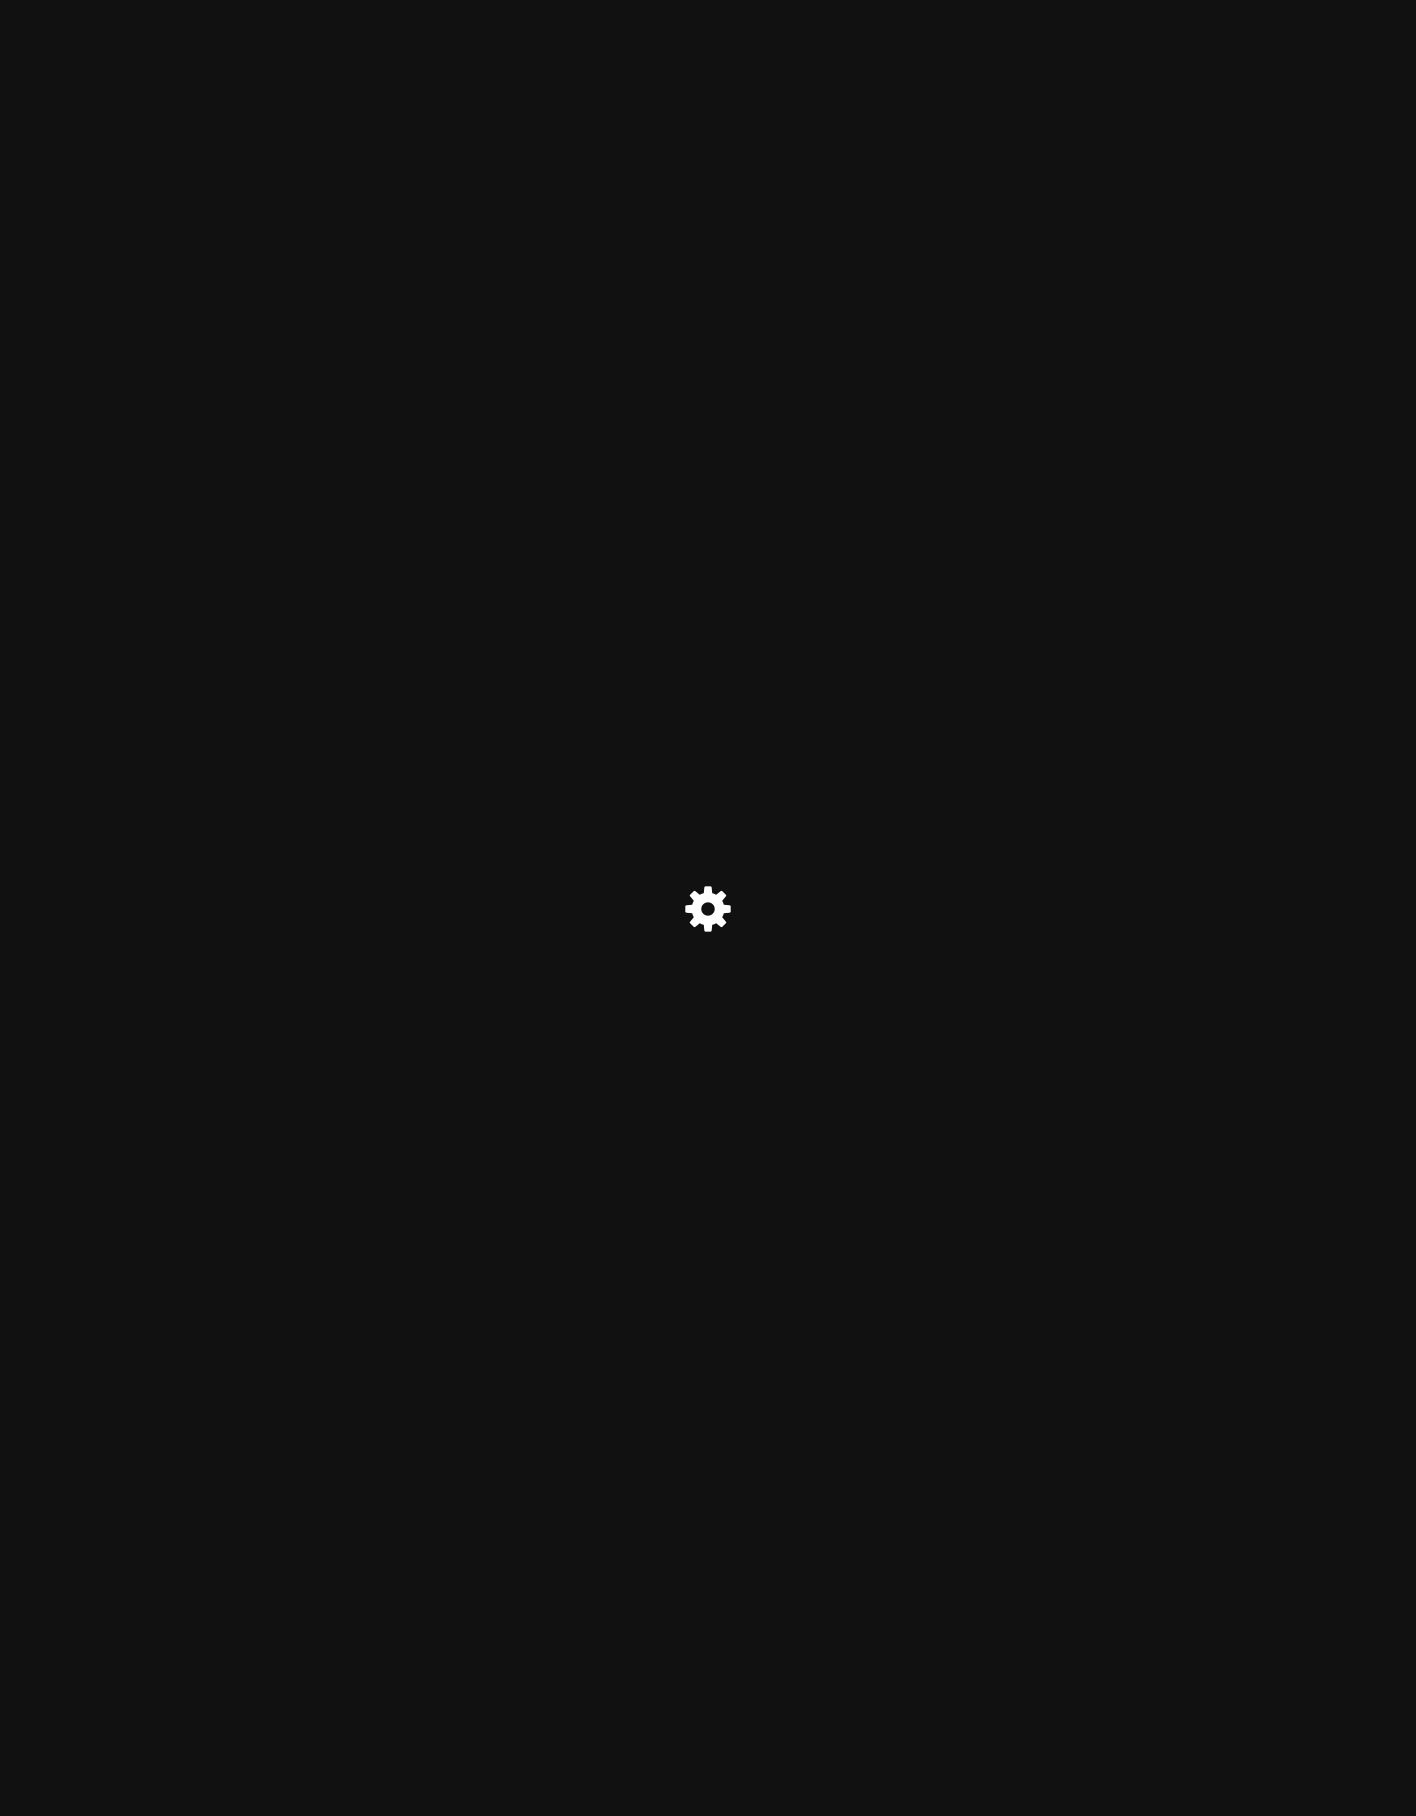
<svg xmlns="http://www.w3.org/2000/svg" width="1416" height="1816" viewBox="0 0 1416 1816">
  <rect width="100%" height="100%" fill="#111"/>
  <image x="685" y="886" width="46" height="46" href="images/1.png"/>
</svg>
